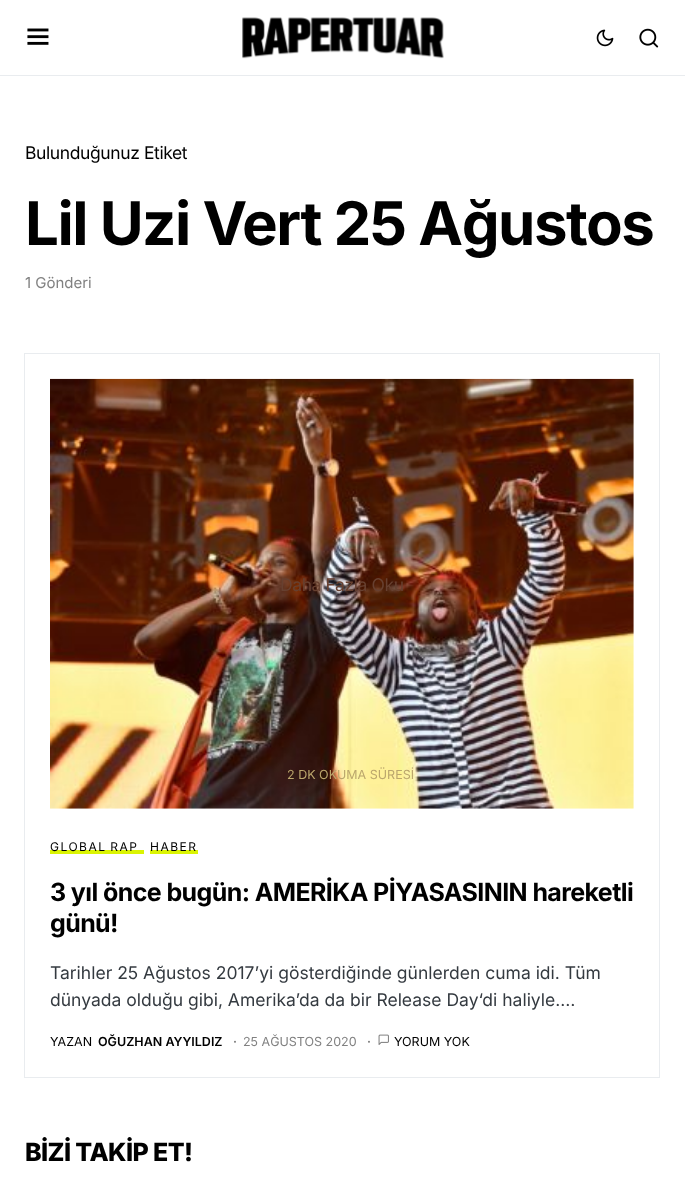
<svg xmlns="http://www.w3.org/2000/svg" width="685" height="1186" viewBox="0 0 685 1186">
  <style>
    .t1 { font: 17.5px Inter; letter-spacing: -0.4px; fill: #000; }
    .t2 { font: bold 60px Inter; letter-spacing: -1.5px; fill: #000; }
    .t3 { font: 15px Inter; fill: #818181; }
    .t4 { font: 17.5px Inter; letter-spacing: -0.4px; fill: #674030; }
    .t5 { font: 12.5px Inter; fill: #bba66c; }
    .t6 { font: 12px Inter; letter-spacing: 1.5px; fill: #000; }
    .t7 { font: bold 25px Inter; letter-spacing: -0.6px; fill: #000; }
    .t8 { font: 17.5px Inter; fill: #343a40; }
    .t9 { font: 12.5px Inter; fill: #000; }
    .t10 { font: 600 12.5px Inter; fill: #000; }
    .t11 { font: 600 12.5px Inter; fill: #818181; }
    .t12 { font: 12.5px Inter; fill: #818181; }
    .t13 { font: 800 25px Inter; letter-spacing: -0.6px; fill: #000; }
  </style>
  <rect width="100%" height="100%" fill="#fff"/>
  <rect x="0" y="75" width="685" height="1" fill="#e9ecef"/>
  <image x="27" y="28" width="22" height="17" href="images/1.png"/>
  <image x="242" y="17" width="202" height="42" href="images/2.png"/>
  <image x="596" y="29" width="18" height="18" href="images/3.png"/>
  <image x="639" y="28" width="20" height="20" href="images/4.png"/>
  <text x="25" y="159" class="t1">Bulunduğunuz Etiket</text>
  <text x="25" y="245" class="t2">Lil Uzi Vert 25 Ağustos</text>
  <text x="25" y="288" class="t3">1 Gönderi</text>
  <rect x="24.5" y="353.5" width="635" height="724" fill="none" stroke="#e9ecef"/>
  <image x="50" y="378" width="584" height="431" href="images/5.png"/>
  <text x="280" y="591" class="t4">Daha Fazla Oku</text>
  <text x="287" y="779" class="t5">2 DK OKUMA SÜRESİ</text>
  <rect x="50" y="850" width="94" height="4" fill="#dbf402"/>
  <text x="50" y="851" word-spacing="-1" class="t6">GLOBAL RAP</text>
  <rect x="150" y="850" width="48" height="4" fill="#dbf402"/>
  <text x="150" y="851" class="t6">HABER</text>
  <text x="50" y="901" class="t7">3 yıl önce bugün: AMERİKA PİYASASININ hareketli</text>
  <text x="50" y="932" class="t7">günü!</text>
  <text x="50" y="979" class="t8">Tarihler 25 Ağustos 2017’yi gösterdiğinde günlerden cuma idi. Tüm</text>
  <text x="50" y="1006" class="t8">dünyada olduğu gibi, Amerika’da da bir Release Day‘di haliyle.…</text>
  <text x="50" y="1046" class="t9">YAZAN</text>
  <text x="98" y="1046" class="t10">OĞUZHAN AYYILDIZ</text>
  <text x="233" y="1046" class="t11">·</text>
  <text x="243" y="1046" class="t12">25 AĞUSTOS 2020</text>
  <text x="367" y="1046" class="t11">·</text>
  <image x="378" y="1034" width="11" height="11" href="images/6.png"/>
  <text x="394" y="1046" class="t9">YORUM YOK</text>
  <text x="25" y="1161" class="t13">BİZİ TAKİP ET!</text>
</svg>
